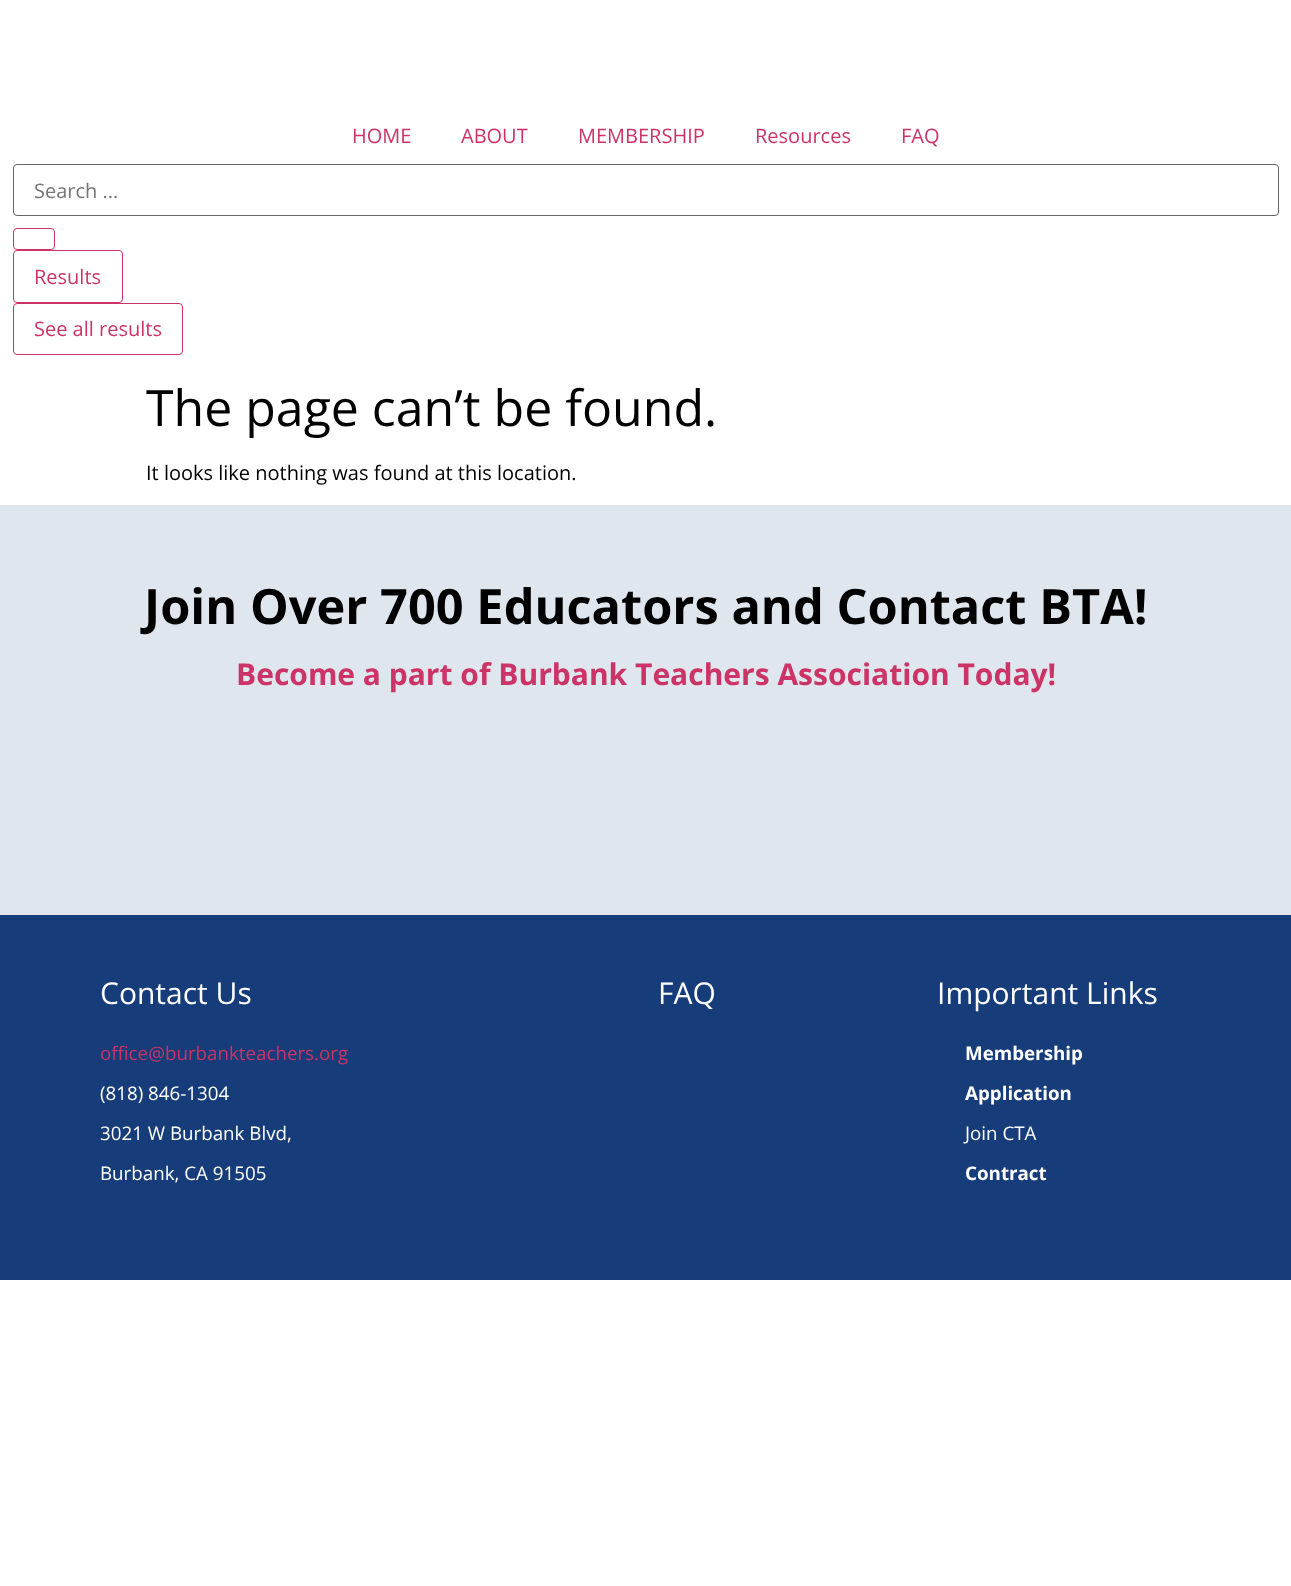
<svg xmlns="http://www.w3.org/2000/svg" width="1291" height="1586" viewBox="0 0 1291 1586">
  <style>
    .t1 { font: 20px Open Sans; fill: #c36; }
    .t2 { font: 20px Open Sans; fill: #757575; }
    .t3 { font: 50px Open Sans; fill: #000; }
    .t4 { font: 20px Open Sans; fill: #000; }
    .t5 { font: bold 48.75px Open Sans; fill: #000; }
    .t6 { font: bold 30px Open Sans; fill: #c36; }
    .t7 { font: 30px Open Sans; fill: #fff; }
    .t8 { font: 18.75px Open Sans; fill: #c36; }
    .t9 { font: 18.75px Open Sans; fill: #fff; }
    .t10 { font: bold 18.75px Open Sans; fill: #fff; }
  </style>
  <rect width="100%" height="100%" fill="#fff"/>
  <text x="352" y="143" class="t1">HOME</text>
  <text x="461" y="143" class="t1">ABOUT</text>
  <text x="578" y="143" class="t1">MEMBERSHIP</text>
  <text x="755" y="143" class="t1">Resources</text>
  <text x="901" y="143" class="t1">FAQ</text>
  <rect x="13.5" y="164.5" width="1265" height="51" rx="3.5" fill="none" stroke="#666"/>
  <text x="34" y="198" class="t2">Search ...</text>
  <rect x="13.5" y="228.5" width="41" height="21" rx="3.5" fill="none" stroke="#c36"/>
  <rect x="13.5" y="250.5" width="109" height="52" rx="3.5" fill="none" stroke="#c36"/>
  <text x="34" y="284" class="t1">Results</text>
  <rect x="13.5" y="303.5" width="169" height="51" rx="3.5" fill="none" stroke="#c36"/>
  <text x="34" y="336" class="t1">See all results</text>
  <text x="146" y="426" class="t3">The page can’t be found.</text>
  <text x="146" y="480" class="t4">It looks like nothing was found at this location.</text>
  <rect x="0" y="505" width="1291" height="410" fill="#e0e6ed"/>
  <text x="144" y="624" class="t5">Join Over 700 Educators and Contact BTA!</text>
  <text x="236" y="685" class="t6">Become a part of Burbank Teachers Association Today!</text>
  <rect x="0" y="915" width="1291" height="365" fill="#173c7a"/>
  <text x="100" y="1004" class="t7">Contact Us</text>
  <text x="100" y="1060" class="t8">office@burbankteachers.org</text>
  <text x="100" y="1100" class="t9">(818) 846-1304</text>
  <text x="100" y="1140" class="t9">3021 W Burbank Blvd,</text>
  <text x="100" y="1180" class="t9">Burbank, CA 91505</text>
  <text x="658" y="1004" class="t7">FAQ</text>
  <text x="937" y="1004" class="t7">Important Links</text>
  <text x="965" y="1060" class="t10">Membership</text>
  <text x="965" y="1100" class="t10">Application</text>
  <text x="965" y="1140" class="t9">Join CTA</text>
  <text x="965" y="1180" class="t10">Contract</text>
</svg>
